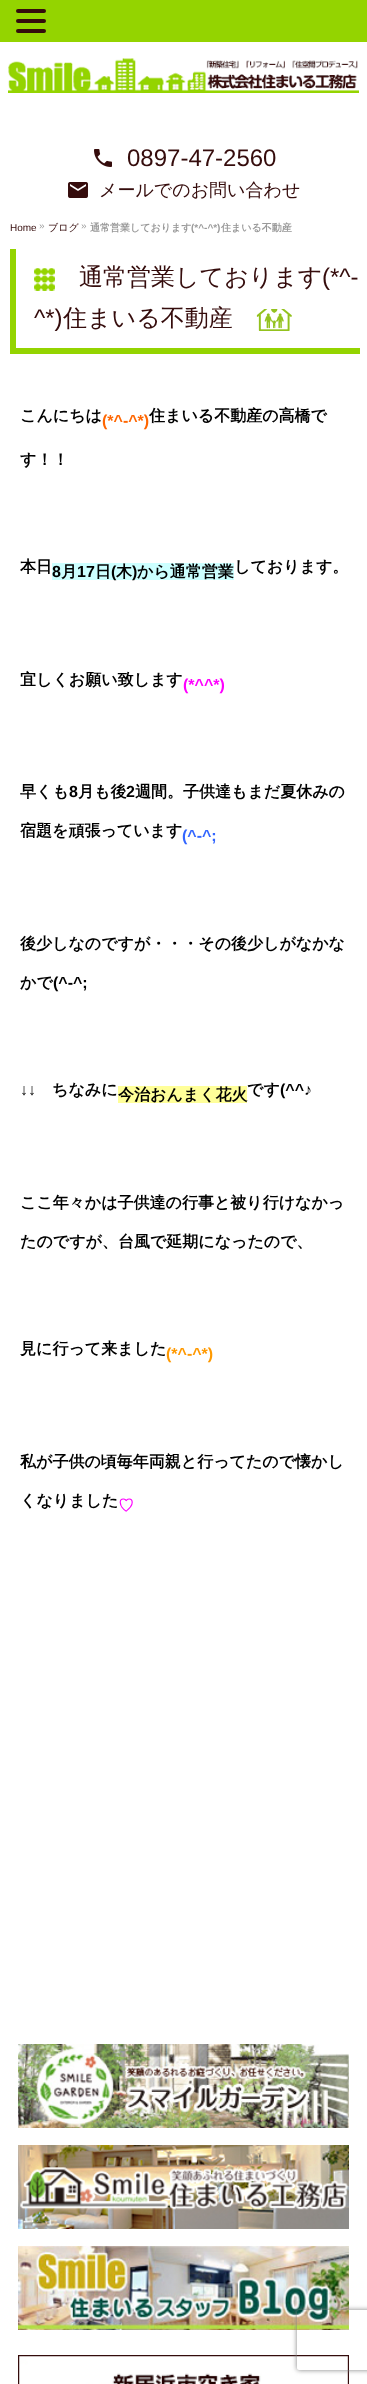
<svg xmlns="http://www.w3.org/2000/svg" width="367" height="2384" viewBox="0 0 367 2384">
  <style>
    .t1 { font: 24px Liberation Sans; fill: #350c0c; }
    .t2 { font: 500 18px WenQuanYi Zen Hei; fill: #350c0c; }
    .t3 { font: 10px Liberation Sans; fill: #350c0c; }
    .t4 { font: 10px Liberation Sans; fill: #999; }
    .t5 { font: 500 10px WenQuanYi Zen Hei; fill: #350c0c; }
    .t6 { font: bold 10px WenQuanYi Zen Hei; fill: #999; }
    .t7 { font: bold 10px Liberation Sans; fill: #999; }
    .t8 { font: 500 24px WenQuanYi Zen Hei; fill: #350c0c; }
    .t9 { font: bold 16px WenQuanYi Zen Hei; fill: #000; }
    .t10 { font: bold 16px Liberation Sans; fill: #f60; }
    .t11 { font: bold 16px Liberation Sans; fill: #000; }
    .t12 { font: bold 16px Liberation Sans; fill: #f0f; }
    .t13 { font: bold 16px Liberation Sans; fill: #36f; }
    .t14 { font: bold 16px Liberation Sans; fill: #f90; }
    .t15 { font: bold 16px WenQuanYi Zen Hei; fill: #f0f; }
  </style>
  <defs>
    <clipPath id="clip1"><path d="M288 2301H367V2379H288ZM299 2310H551C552 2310 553 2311 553 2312V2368C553 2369 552 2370 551 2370H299C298 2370 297 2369 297 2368V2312C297 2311 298 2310 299 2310Z" clip-rule="evenodd"/></clipPath>
  </defs>
  <rect width="100%" height="100%" fill="#fff"/>
  <rect x="0" y="0" width="367" height="42" fill="#94d400"/>
  <rect x="16" y="9" width="30" height="4" rx="2" fill="#350c0c"/>
  <rect x="16" y="19" width="30" height="4" rx="2" fill="#350c0c"/>
  <rect x="16" y="29" width="30" height="4" rx="2" fill="#350c0c"/>
  <image x="8" y="58" width="351" height="35" href="images/1.png"/>
  <image x="94" y="149" width="18" height="18" href="images/2.png"/>
  <text x="127" y="166" class="t1">0897-47-2560</text>
  <image x="68" y="182" width="20" height="16" href="images/3.png"/>
  <text x="99" y="196" class="t2">メールでのお問い合わせ</text>
  <text x="10" y="231" class="t3">Home</text>
  <text x="39" y="229" class="t4">»</text>
  <text x="48" y="231" class="t5">ブログ</text>
  <text x="81" y="229" class="t4">»</text>
  <text x="90" y="231" class="t6">通常営業しております</text>
  <text x="191" y="231" class="t7">(*^-^*)</text>
  <text x="221" y="231" class="t6">住まいる不動産</text>
  <rect x="10" y="348" width="350" height="6" fill="#94d400"/>
  <rect x="10" y="249" width="6" height="105" fill="#94d400"/>
  <image x="34" y="268" width="21" height="23" href="images/4.png"/>
  <text x="79" y="285" class="t8">通常営業しております</text>
  <text x="322" y="285" class="t1">(*^-</text>
  <text x="34" y="326" class="t1">^*)</text>
  <text x="63" y="326" class="t8">住まいる不動産</text>
  <image x="256" y="309" width="36" height="22" href="images/5.png"/>
  <text x="20" y="421" class="t9">こんにちは</text>
  <text x="102" y="426" class="t10">(*^-^*)</text>
  <text x="149" y="421" class="t9">住まいる不動産の高橋で</text>
  <text x="20" y="465" class="t9">す！！</text>
  <text x="20" y="572" class="t9">本日</text>
  <rect x="52" y="563" width="182" height="17" fill="#cff"/>
  <text x="52" y="577" class="t11">8</text>
  <text x="61" y="577" class="t9">月</text>
  <text x="77" y="577" class="t11">17</text>
  <text x="95" y="577" class="t9">日</text>
  <text x="111" y="577" class="t11">(</text>
  <text x="116" y="577" class="t9">木</text>
  <text x="132" y="577" class="t11">)</text>
  <text x="137" y="577" class="t9">から通常営業</text>
  <text x="234" y="572" class="t9">しております。</text>
  <text x="20" y="685" class="t9">宜しくお願い致します</text>
  <text x="183" y="690" class="t12">(*^^*)</text>
  <text x="20" y="797" class="t9">早くも</text>
  <text x="69" y="797" class="t11">8</text>
  <text x="78" y="797" class="t9">月も後</text>
  <text x="126" y="797" class="t11">2</text>
  <text x="135" y="797" class="t9">週間。子供達もまだ夏休みの</text>
  <text x="20" y="836" class="t9">宿題を頑張っています</text>
  <text x="182" y="841" class="t13">(^-^;</text>
  <text x="20" y="949" class="t9">後少しなのですが・・・その後少しがなかな</text>
  <text x="20" y="988" class="t9">かで</text>
  <text x="53" y="988" class="t11">(^-^;</text>
  <text x="20" y="1095" class="t11">↓↓</text>
  <text x="52" y="1095" class="t9">ちなみに</text>
  <rect x="118" y="1086" width="129" height="17" fill="#ff9"/>
  <text x="118" y="1100" class="t9">今治おんまく花火</text>
  <text x="247" y="1095" class="t9">です</text>
  <text x="280" y="1095" class="t11">(^^♪</text>
  <text x="20" y="1208" class="t9">ここ年々かは子供達の行事と被り行けなかっ</text>
  <text x="20" y="1247" class="t9">たのですが、台風で延期になったので、</text>
  <text x="20" y="1354" class="t9">見に行って来ました</text>
  <text x="166" y="1359" class="t14">(*^-^*)</text>
  <text x="20" y="1467" class="t9">私が子供の頃毎年両親と行ってたので懐かし</text>
  <text x="20" y="1506" class="t9">くなりました</text>
  <text x="118" y="1511" class="t15">♡</text>
  <image x="18" y="2044" width="331" height="84" href="images/6.png"/>
  <image x="18" y="2145" width="331" height="84" href="images/7.png"/>
  <image x="18" y="2246" width="331" height="84" href="images/8.png"/>
  <image x="18" y="2355" width="331" height="29" href="images/9.png"/>
  <g clip-path="url(#clip1)">
    <rect x="297" y="2310" width="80" height="60" rx="2" fill="#808080" filter="blur(2.5px)"/>
  </g>
</svg>
